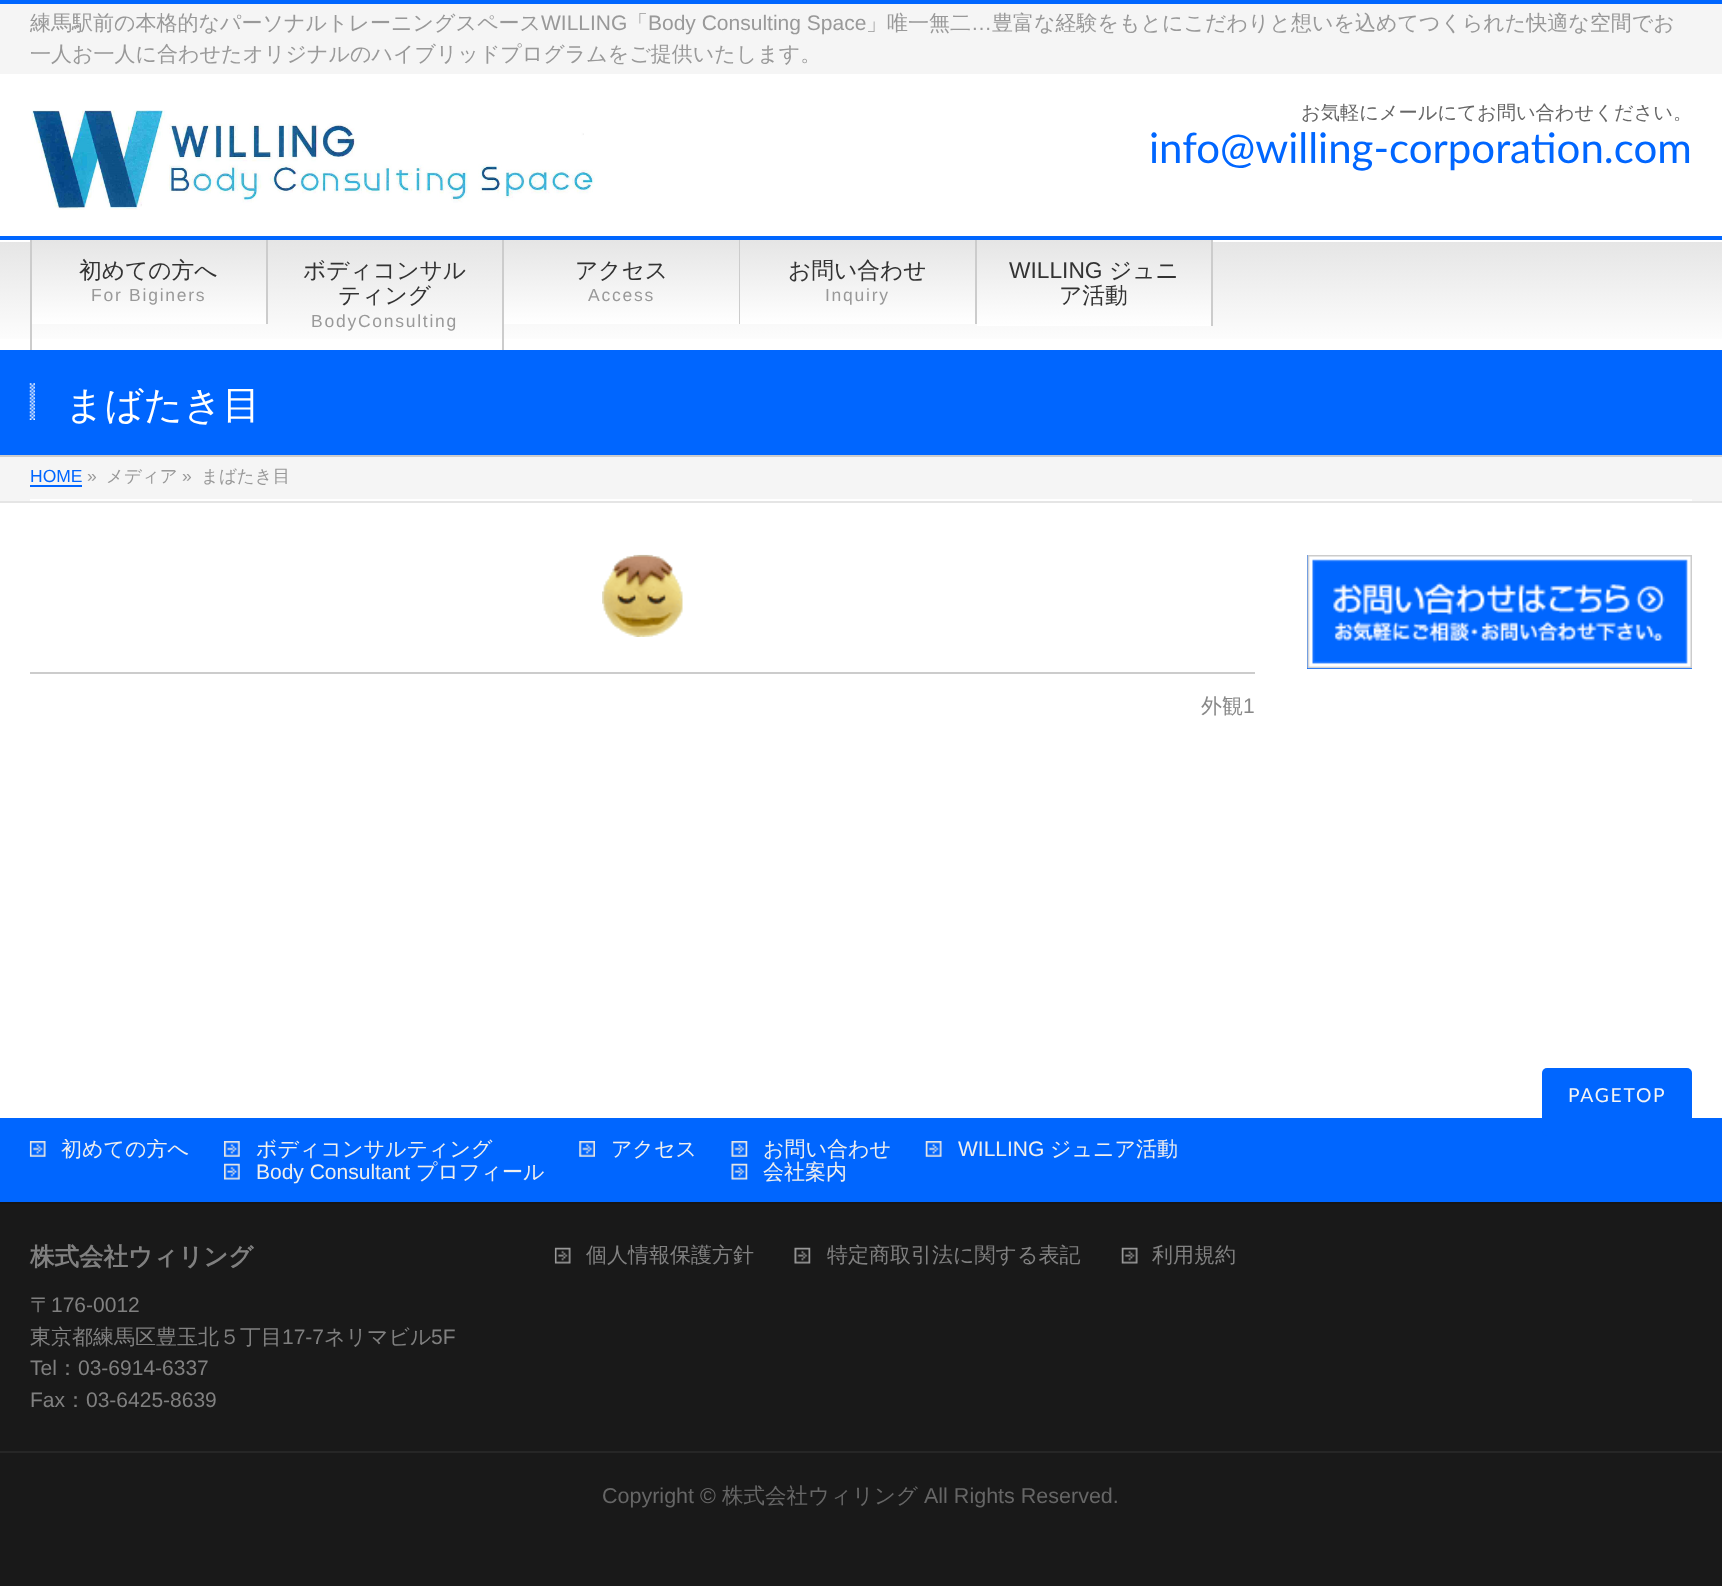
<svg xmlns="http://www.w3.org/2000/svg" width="1722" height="1587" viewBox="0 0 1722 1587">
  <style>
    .t1 { font: 500 21px WenQuanYi Zen Hei; fill: #999; }
    .t2 { font: 21px Liberation Sans; fill: #999; }
    .t3 { font: 500 19.25px WenQuanYi Zen Hei; fill: #666; }
    .t4 { font: 42px Lato; fill: #06f; }
    .t5 { font: 500 22.75px WenQuanYi Zen Hei; fill: #333; }
    .t6 { font: 17.5px Liberation Sans; letter-spacing: 1.75px; fill: #999; }
    .t7 { font: 22.75px Liberation Sans; fill: #333; }
    .t8 { font: 500 38.5px WenQuanYi Zen Hei; fill: #fff; }
    .t9 { font: 17.5px Liberation Sans; fill: #06f; }
    .t10 { font: 17.5px Liberation Sans; fill: #999; }
    .t11 { font: 500 17.5px WenQuanYi Zen Hei; fill: #999; }
    .t12 { font: 500 21px WenQuanYi Zen Hei; fill: #888; }
    .t13 { font: 21px Liberation Sans; fill: #888; }
    .t14 { font: 19.25px Lato; letter-spacing: 1.75px; fill: #f5f5f5; }
    .t15 { font: 500 21px WenQuanYi Zen Hei; fill: #efefef; }
    .t16 { font: 21px Liberation Sans; fill: #efefef; }
    .t17 { font: bold 24.5px WenQuanYi Zen Hei; fill: #808080; }
    .t18 { font: 500 21px WenQuanYi Zen Hei; fill: #808080; }
    .t19 { font: 21px Liberation Sans; fill: #808080; }
    .t20 { font: 21.5px Liberation Sans; fill: #666; }
    .t21 { font: 500 21.5px WenQuanYi Zen Hei; fill: #666; }
  </style>
  <defs>
    <linearGradient id="g1" gradientUnits="userSpaceOnUse" x1="0" y1="240" x2="0" y2="350"><stop offset="0" stop-color="#e5e5e5"/><stop offset="1" stop-color="#fff"/></linearGradient>
    <linearGradient id="g2" gradientUnits="userSpaceOnUse" x1="32" y1="240" x2="32" y2="324"><stop offset="0" stop-color="#e5e5e5"/><stop offset="1" stop-color="#fff"/></linearGradient>
    <linearGradient id="g3" gradientUnits="userSpaceOnUse" x1="268" y1="240" x2="268" y2="350"><stop offset="0" stop-color="#e5e5e5"/><stop offset="1" stop-color="#fff"/></linearGradient>
    <linearGradient id="g4" gradientUnits="userSpaceOnUse" x1="504" y1="240" x2="504" y2="324"><stop offset="0" stop-color="#e5e5e5"/><stop offset="1" stop-color="#fff"/></linearGradient>
    <linearGradient id="g5" gradientUnits="userSpaceOnUse" x1="740" y1="240" x2="740" y2="324"><stop offset="0" stop-color="#e5e5e5"/><stop offset="1" stop-color="#fff"/></linearGradient>
    <linearGradient id="g6" gradientUnits="userSpaceOnUse" x1="977" y1="240" x2="977" y2="326"><stop offset="0" stop-color="#e5e5e5"/><stop offset="1" stop-color="#fff"/></linearGradient>
    <clipPath id="clip1"><rect x="30" y="1139" width="1662" height="46"/></clipPath>
  </defs>
  <rect width="100%" height="100%" fill="#fff"/>
  <rect x="0" y="4" width="1722" height="70" fill="#f5f5f5"/>
  <rect x="0" y="0" width="1722" height="4" fill="#06f"/>
  <text x="30" y="30" class="t1">練馬駅前の本格的なパーソナルトレーニングスペース</text>
  <text x="541" y="30" class="t2">WILLING</text>
  <text x="627" y="30" class="t1">「</text>
  <text x="648" y="30" class="t2">Body Consulting Space</text>
  <text x="866" y="30" class="t1">」唯一無二</text>
  <text x="971" y="30" class="t2">…</text>
  <text x="992" y="30" class="t1">豊富な経験をもとにこだわりと想いを込めてつくられた快適な空間でお</text>
  <text x="30" y="61" class="t1">一人お一人に合わせたオリジナルのハイブリッドプログラムをご提供いたします。</text>
  <image x="31" y="110" width="564" height="100" href="images/1.png"/>
  <text x="1301" y="119" class="t3">お気軽にメールにてお問い合わせください。</text>
  <text x="1149" y="163" class="t4">info@willing-corporation.com</text>
  <rect x="0" y="242" width="1722" height="97" fill="url(#g1)"/>
  <rect x="0" y="236" width="1722" height="4" fill="#06f"/>
  <rect x="30" y="240" width="2" height="110" fill="#ccc"/>
  <rect x="32" y="240" width="234" height="84" fill="url(#g2)"/>
  <rect x="266" y="240" width="2" height="84" fill="#ccc"/>
  <text x="79" y="278" class="t5">初めての方へ</text>
  <text x="91" y="301" class="t6">For Biginers</text>
  <rect x="268" y="240" width="234" height="2" fill="url(#g3)"/>
  <rect x="502" y="240" width="2" height="110" fill="#ccc"/>
  <text x="303" y="278" class="t5">ボディコンサル</text>
  <text x="338" y="303" class="t5">ティング</text>
  <text x="311" y="327" class="t6">BodyConsulting</text>
  <rect x="504" y="240" width="235" height="84" fill="url(#g4)"/>
  <rect x="739" y="240" width="1" height="84" fill="#ccc"/>
  <text x="575" y="278" class="t5">アクセス</text>
  <text x="588" y="301" class="t6">Access</text>
  <rect x="740" y="240" width="235" height="84" fill="url(#g5)"/>
  <rect x="975" y="240" width="2" height="84" fill="#ccc"/>
  <text x="788" y="278" class="t5">お問い合わせ</text>
  <text x="825" y="301" class="t6">Inquiry</text>
  <rect x="977" y="240" width="234" height="86" fill="url(#g6)"/>
  <rect x="1211" y="240" width="2" height="86" fill="#ccc"/>
  <text x="1009" y="278" class="t7">WILLING</text>
  <text x="1109" y="278" class="t5">ジュニ</text>
  <text x="1059" y="303" class="t5">ア活動</text>
  <rect x="0" y="350" width="1722" height="105" fill="#06f"/>
  <rect x="0" y="455" width="1722" height="2" fill="#ccc"/>
  <image x="29" y="383" width="6" height="37" href="images/2.png"/>
  <text x="65" y="418" class="t8">まばたき目</text>
  <rect x="0" y="457" width="1722" height="44" fill="#f5f5f5"/>
  <rect x="0" y="501" width="1722" height="2" fill="#e5e5e5"/>
  <rect x="30" y="499" width="1662" height="2" fill="#fff"/>
  <text x="30" y="482" class="t9">HOME</text>
  <rect x="30" y="485" width="52" height="2" fill="#06f"/>
  <text x="87" y="482" class="t10">»</text>
  <text x="106" y="482" class="t11">メディア</text>
  <text x="182" y="482" class="t10">»</text>
  <text x="201" y="482" class="t11">まばたき目</text>
  <rect x="1307" y="555" width="385" height="114" fill="#06f"/>
  <image x="1307" y="555" width="385" height="114" href="images/3.png"/>
  <image x="602" y="554" width="81" height="83" href="images/4.png"/>
  <rect x="30" y="672" width="1225" height="2" fill="#ccc"/>
  <text x="1201" y="713" class="t12">外観</text>
  <text x="1243" y="713" class="t13">1</text>
  <rect x="0" y="1118" width="1722" height="84" fill="#06f"/>
  <rect x="1542" y="1068" width="150" height="68" rx="5" fill="#06f"/>
  <text x="1568" y="1102" class="t14">PAGETOP</text>
  <image x="29" y="1141" width="17" height="16" href="images/5.png"/>
  <g clip-path="url(#clip1)">
    <text x="61" y="1156" class="t15">初めての方へ</text>
  </g>
  <image x="224" y="1141" width="16" height="16" href="images/6.png"/>
  <text x="256" y="1156" class="t15">ボディコンサルティング</text>
  <image x="224" y="1163" width="16" height="17" href="images/7.png"/>
  <text x="256" y="1179" class="t16">Body Consultant</text>
  <text x="416" y="1179" class="t15">プロフィール</text>
  <image x="579" y="1141" width="16" height="16" href="images/8.png"/>
  <text x="611" y="1156" class="t15">アクセス</text>
  <image x="731" y="1141" width="17" height="16" href="images/9.png"/>
  <text x="763" y="1156" class="t15">お問い合わせ</text>
  <image x="731" y="1163" width="17" height="17" href="images/10.png"/>
  <text x="763" y="1179" class="t15">会社案内</text>
  <image x="925" y="1141" width="17" height="16" href="images/11.png"/>
  <text x="958" y="1156" class="t16">WILLING</text>
  <text x="1050" y="1156" class="t15">ジュニア活動</text>
  <rect x="0" y="1204" width="1722" height="247" fill="#191919"/>
  <rect x="0" y="1202" width="1722" height="2" fill="#151515"/>
  <text x="30" y="1265" class="t17">株式会社ウィリング</text>
  <text x="30" y="1312" class="t18">〒</text>
  <text x="51" y="1312" class="t19">176-0012</text>
  <text x="30" y="1344" class="t18">東京都練馬区豊玉北５丁目</text>
  <text x="282" y="1344" class="t19">17-7</text>
  <text x="324" y="1344" class="t18">ネリマビル</text>
  <text x="431" y="1344" class="t19">5F</text>
  <text x="30" y="1375" class="t19">Tel</text>
  <text x="57" y="1375" class="t18">：</text>
  <text x="78" y="1375" class="t19">03-6914-6337</text>
  <text x="30" y="1407" class="t19">Fax</text>
  <text x="65" y="1407" class="t18">：</text>
  <text x="86" y="1407" class="t19">03-6425-8639</text>
  <image x="554" y="1247" width="17" height="17" href="images/12.png"/>
  <text x="586" y="1262" class="t18">個人情報保護方針</text>
  <image x="794" y="1247" width="17" height="17" href="images/13.png"/>
  <text x="827" y="1262" class="t18">特定商取引法に関する表記</text>
  <image x="1121" y="1247" width="17" height="17" href="images/14.png"/>
  <text x="1152" y="1262" class="t18">利用規約</text>
  <rect x="0" y="1453" width="1722" height="133" fill="#191919"/>
  <rect x="0" y="1451" width="1722" height="2" fill="#262626"/>
  <text x="602" y="1503" class="t20">Copyright ©</text>
  <text x="722" y="1503" class="t21">株式会社ウィリング</text>
  <text x="924" y="1503" class="t20">All Rights Reserved.</text>
</svg>
